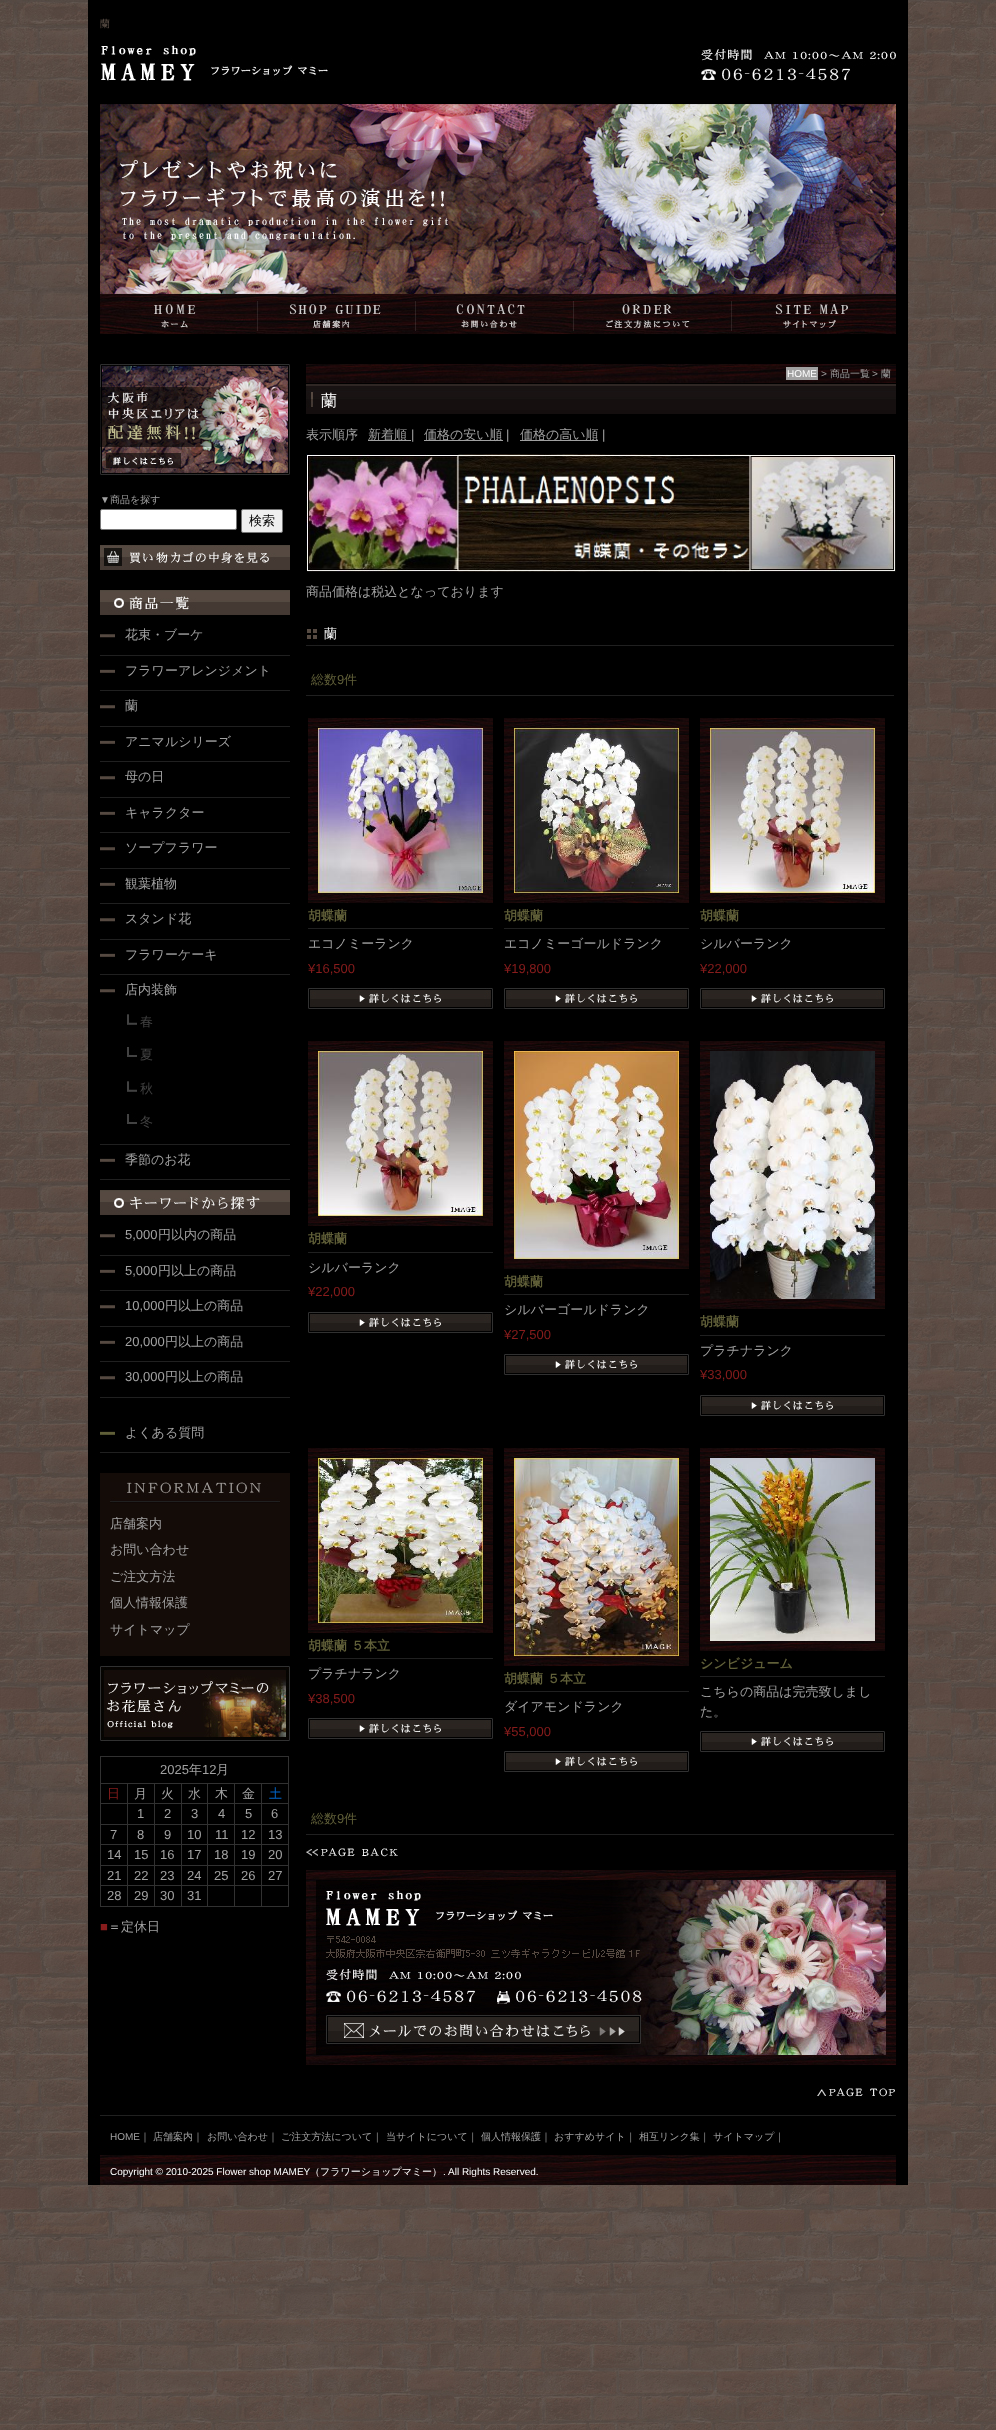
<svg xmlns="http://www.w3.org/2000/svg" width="996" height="2430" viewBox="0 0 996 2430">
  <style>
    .t1 { font: 500 10px WenQuanYi Zen Hei; fill: #61544b; }
    .t2 { font: 10px Liberation Sans; fill: #a1a1a1; }
    .t3 { font: 500 10px WenQuanYi Zen Hei; fill: #a1a1a1; }
    .t4 { font: 500 13px WenQuanYi Zen Hei; fill: #000; }
    .t5 { font: 500 13px WenQuanYi Zen Hei; fill: #a1a1a1; }
    .t6 { font: 500 13px WenQuanYi Zen Hei; fill: #424242; }
    .t7 { font: 13px Liberation Sans; fill: #a1a1a1; }
    .t8 { font: 500 13px WenQuanYi Zen Hei; fill: #881c1c; }
    .t9 { font: 500 13px WenQuanYi Zen Hei; fill: #06c; }
    .t10 { font: 13px Liberation Sans; fill: #881c1c; }
    .t11 { font: 10px Liberation Sans; fill: #fff; }
    .t12 { font: 500 16px WenQuanYi Zen Hei; fill: #fff; }
    .t13 { font: 500 13px WenQuanYi Zen Hei; fill: #fff; }
    .t14 { font: 500 13px WenQuanYi Zen Hei; fill: #605f38; }
    .t15 { font: 13px Liberation Sans; fill: #605f38; }
    .t16 { font: bold 13px WenQuanYi Zen Hei; fill: #605f38; }
    .t17 { font: 500 10px WenQuanYi Zen Hei; fill: #fff; }
  </style>
  <rect width="100%" height="100%" fill="#fff"/>
  <image x="0" y="0" width="996" height="2430" href="images/1.png"/>
  <rect x="88" y="0" width="820" height="2185" fill="#000"/>
  <text x="100" y="27" class="t1">蘭</text>
  <image x="101" y="45" width="795" height="36" href="images/2.png"/>
  <image x="100" y="104" width="796" height="190" href="images/3.png"/>
  <image x="257" y="294" width="1" height="40" href="images/4.png"/>
  <image x="100" y="294" width="157" height="40" href="images/5.png"/>
  <image x="415" y="294" width="1" height="40" href="images/6.png"/>
  <image x="258" y="294" width="157" height="40" href="images/7.png"/>
  <image x="573" y="294" width="1" height="40" href="images/8.png"/>
  <image x="416" y="294" width="157" height="40" href="images/9.png"/>
  <image x="731" y="294" width="1" height="40" href="images/10.png"/>
  <image x="574" y="294" width="157" height="40" href="images/11.png"/>
  <image x="732" y="294" width="164" height="40" href="images/12.png"/>
  <image x="100" y="364" width="190" height="111" href="images/13.png"/>
  <text x="100" y="503" class="t2">▼</text>
  <text x="110" y="503" class="t3">商品を探す</text>
  <rect x="100.5" y="509.5" width="136" height="20" rx="1.5" fill="#fff" stroke="#767676"/>
  <rect x="241.5" y="509.5" width="41" height="23" rx="1.5" fill="#efefef" stroke="#767676"/>
  <text x="249" y="525" class="t4">検索</text>
  <image x="100" y="545" width="190" height="25" href="images/14.png"/>
  <image x="100" y="590" width="190" height="25" href="images/15.png"/>
  <rect x="100" y="655" width="190" height="1" fill="#202020"/>
  <image x="100" y="629" width="20" height="9" href="images/16.png"/>
  <text x="125" y="639" class="t5">花束・ブーケ</text>
  <rect x="100" y="690" width="190" height="1" fill="#202020"/>
  <image x="100" y="665" width="20" height="8" href="images/17.png"/>
  <text x="125" y="675" class="t5">フラワーアレンジメント</text>
  <rect x="100" y="726" width="190" height="1" fill="#202020"/>
  <image x="100" y="700" width="20" height="9" href="images/16.png"/>
  <text x="125" y="710" class="t5">蘭</text>
  <rect x="100" y="761" width="190" height="1" fill="#202020"/>
  <image x="100" y="736" width="20" height="8" href="images/17.png"/>
  <text x="125" y="746" class="t5">アニマルシリーズ</text>
  <rect x="100" y="797" width="190" height="1" fill="#202020"/>
  <image x="100" y="771" width="20" height="9" href="images/16.png"/>
  <text x="125" y="781" class="t5">母の日</text>
  <rect x="100" y="832" width="190" height="1" fill="#202020"/>
  <image x="100" y="807" width="20" height="8" href="images/17.png"/>
  <text x="125" y="817" class="t5">キャラクター</text>
  <rect x="100" y="868" width="190" height="1" fill="#202020"/>
  <image x="100" y="842" width="20" height="9" href="images/16.png"/>
  <text x="125" y="852" class="t5">ソープフラワー</text>
  <rect x="100" y="903" width="190" height="1" fill="#202020"/>
  <image x="100" y="878" width="20" height="8" href="images/17.png"/>
  <text x="125" y="888" class="t5">観葉植物</text>
  <rect x="100" y="939" width="190" height="1" fill="#202020"/>
  <image x="100" y="913" width="20" height="9" href="images/16.png"/>
  <text x="125" y="923" class="t5">スタンド花</text>
  <rect x="100" y="974" width="190" height="1" fill="#202020"/>
  <image x="100" y="949" width="20" height="8" href="images/17.png"/>
  <text x="125" y="959" class="t5">フラワーケーキ</text>
  <rect x="100" y="1144" width="190" height="1" fill="#202020"/>
  <image x="100" y="984" width="20" height="9" href="images/16.png"/>
  <text x="125" y="994" class="t5">店内装飾</text>
  <image x="127" y="1011" width="10" height="14" href="images/18.png"/>
  <text x="140" y="1026" class="t6">春</text>
  <image x="127" y="1044" width="10" height="13" href="images/19.png"/>
  <text x="140" y="1059" class="t6">夏</text>
  <image x="127" y="1078" width="10" height="14" href="images/18.png"/>
  <text x="140" y="1093" class="t6">秋</text>
  <image x="127" y="1111" width="10" height="13" href="images/19.png"/>
  <text x="140" y="1126" class="t6">冬</text>
  <rect x="100" y="1179" width="190" height="1" fill="#202020"/>
  <image x="100" y="1154" width="20" height="8" href="images/17.png"/>
  <text x="125" y="1164" class="t5">季節のお花</text>
  <image x="100" y="1190" width="190" height="25" href="images/20.png"/>
  <rect x="100" y="1255" width="190" height="1" fill="#202020"/>
  <image x="100" y="1229" width="20" height="9" href="images/16.png"/>
  <text x="125" y="1239" class="t7">5,000</text>
  <text x="158" y="1239" class="t5">円以内の商品</text>
  <rect x="100" y="1290" width="190" height="1" fill="#202020"/>
  <image x="100" y="1265" width="20" height="8" href="images/17.png"/>
  <text x="125" y="1275" class="t7">5,000</text>
  <text x="158" y="1275" class="t5">円以上の商品</text>
  <rect x="100" y="1326" width="190" height="1" fill="#202020"/>
  <image x="100" y="1300" width="20" height="9" href="images/16.png"/>
  <text x="125" y="1310" class="t7">10,000</text>
  <text x="165" y="1310" class="t5">円以上の商品</text>
  <rect x="100" y="1361" width="190" height="1" fill="#202020"/>
  <image x="100" y="1336" width="20" height="8" href="images/17.png"/>
  <text x="125" y="1346" class="t7">20,000</text>
  <text x="165" y="1346" class="t5">円以上の商品</text>
  <rect x="100" y="1397" width="190" height="1" fill="#202020"/>
  <image x="100" y="1371" width="20" height="9" href="images/16.png"/>
  <text x="125" y="1381" class="t7">30,000</text>
  <text x="165" y="1381" class="t5">円以上の商品</text>
  <rect x="100" y="1452" width="190" height="1" fill="#202020"/>
  <image x="100" y="1427" width="15" height="8" href="images/21.png"/>
  <text x="125" y="1437" class="t5">よくある質問</text>
  <rect x="100" y="1473" width="190" height="183" fill="#140c08"/>
  <image x="110" y="1482" width="170" height="21" href="images/22.png"/>
  <text x="110" y="1528" class="t5">店舗案内</text>
  <text x="110" y="1554" class="t5">お問い合わせ</text>
  <text x="110" y="1581" class="t5">ご注文方法</text>
  <text x="110" y="1607" class="t5">個人情報保護</text>
  <text x="110" y="1634" class="t5">サイトマップ</text>
  <image x="100" y="1666" width="190" height="75" href="images/23.png"/>
  <rect x="100" y="1756" width="189" height="1" fill="#313131"/>
  <rect x="288" y="1756" width="1" height="151" fill="#313131"/>
  <rect x="100" y="1906" width="189" height="1" fill="#313131"/>
  <rect x="100" y="1756" width="1" height="151" fill="#313131"/>
  <text x="160" y="1774" class="t7">2025</text>
  <text x="189" y="1774" class="t5">年</text>
  <text x="202" y="1774" class="t7">12</text>
  <text x="216" y="1774" class="t5">月</text>
  <rect x="261" y="1783" width="28" height="1" fill="#313131"/>
  <rect x="261" y="1803" width="28" height="1" fill="#313131"/>
  <rect x="261" y="1824" width="28" height="1" fill="#313131"/>
  <rect x="261" y="1844" width="28" height="1" fill="#313131"/>
  <rect x="261" y="1865" width="28" height="1" fill="#313131"/>
  <rect x="261" y="1885" width="28" height="1" fill="#313131"/>
  <rect x="261" y="1885" width="1" height="22" fill="#313131"/>
  <rect x="234" y="1885" width="28" height="1" fill="#313131"/>
  <rect x="261" y="1865" width="1" height="21" fill="#313131"/>
  <rect x="234" y="1865" width="28" height="1" fill="#313131"/>
  <rect x="261" y="1844" width="1" height="22" fill="#313131"/>
  <rect x="234" y="1844" width="28" height="1" fill="#313131"/>
  <rect x="261" y="1824" width="1" height="21" fill="#313131"/>
  <rect x="234" y="1824" width="28" height="1" fill="#313131"/>
  <rect x="261" y="1803" width="1" height="22" fill="#313131"/>
  <rect x="234" y="1803" width="28" height="1" fill="#313131"/>
  <rect x="261" y="1783" width="1" height="21" fill="#313131"/>
  <rect x="234" y="1783" width="28" height="1" fill="#313131"/>
  <rect x="234" y="1885" width="1" height="22" fill="#313131"/>
  <rect x="207" y="1885" width="28" height="1" fill="#313131"/>
  <rect x="234" y="1865" width="1" height="21" fill="#313131"/>
  <rect x="207" y="1865" width="28" height="1" fill="#313131"/>
  <rect x="234" y="1844" width="1" height="22" fill="#313131"/>
  <rect x="207" y="1844" width="28" height="1" fill="#313131"/>
  <rect x="234" y="1824" width="1" height="21" fill="#313131"/>
  <rect x="207" y="1824" width="28" height="1" fill="#313131"/>
  <rect x="234" y="1803" width="1" height="22" fill="#313131"/>
  <rect x="207" y="1803" width="28" height="1" fill="#313131"/>
  <rect x="234" y="1783" width="1" height="21" fill="#313131"/>
  <rect x="207" y="1783" width="28" height="1" fill="#313131"/>
  <rect x="207" y="1885" width="1" height="22" fill="#313131"/>
  <rect x="181" y="1885" width="27" height="1" fill="#313131"/>
  <rect x="207" y="1865" width="1" height="21" fill="#313131"/>
  <rect x="181" y="1865" width="27" height="1" fill="#313131"/>
  <rect x="207" y="1844" width="1" height="22" fill="#313131"/>
  <rect x="181" y="1844" width="27" height="1" fill="#313131"/>
  <rect x="207" y="1824" width="1" height="21" fill="#313131"/>
  <rect x="181" y="1824" width="27" height="1" fill="#313131"/>
  <rect x="207" y="1803" width="1" height="22" fill="#313131"/>
  <rect x="181" y="1803" width="27" height="1" fill="#313131"/>
  <rect x="207" y="1783" width="1" height="21" fill="#313131"/>
  <rect x="181" y="1783" width="27" height="1" fill="#313131"/>
  <rect x="181" y="1885" width="1" height="22" fill="#313131"/>
  <rect x="154" y="1885" width="28" height="1" fill="#313131"/>
  <rect x="181" y="1865" width="1" height="21" fill="#313131"/>
  <rect x="154" y="1865" width="28" height="1" fill="#313131"/>
  <rect x="181" y="1844" width="1" height="22" fill="#313131"/>
  <rect x="154" y="1844" width="28" height="1" fill="#313131"/>
  <rect x="181" y="1824" width="1" height="21" fill="#313131"/>
  <rect x="154" y="1824" width="28" height="1" fill="#313131"/>
  <rect x="181" y="1803" width="1" height="22" fill="#313131"/>
  <rect x="154" y="1803" width="28" height="1" fill="#313131"/>
  <rect x="181" y="1783" width="1" height="21" fill="#313131"/>
  <rect x="154" y="1783" width="28" height="1" fill="#313131"/>
  <rect x="154" y="1885" width="1" height="22" fill="#313131"/>
  <rect x="127" y="1885" width="28" height="1" fill="#313131"/>
  <rect x="154" y="1865" width="1" height="21" fill="#313131"/>
  <rect x="127" y="1865" width="28" height="1" fill="#313131"/>
  <rect x="154" y="1844" width="1" height="22" fill="#313131"/>
  <rect x="127" y="1844" width="28" height="1" fill="#313131"/>
  <rect x="154" y="1824" width="1" height="21" fill="#313131"/>
  <rect x="127" y="1824" width="28" height="1" fill="#313131"/>
  <rect x="154" y="1803" width="1" height="22" fill="#313131"/>
  <rect x="127" y="1803" width="28" height="1" fill="#313131"/>
  <rect x="154" y="1783" width="1" height="21" fill="#313131"/>
  <rect x="127" y="1783" width="28" height="1" fill="#313131"/>
  <rect x="127" y="1885" width="1" height="22" fill="#313131"/>
  <rect x="100" y="1885" width="28" height="1" fill="#313131"/>
  <rect x="127" y="1865" width="1" height="21" fill="#313131"/>
  <rect x="100" y="1865" width="28" height="1" fill="#313131"/>
  <rect x="127" y="1844" width="1" height="22" fill="#313131"/>
  <rect x="100" y="1844" width="28" height="1" fill="#313131"/>
  <rect x="127" y="1824" width="1" height="21" fill="#313131"/>
  <rect x="100" y="1824" width="28" height="1" fill="#313131"/>
  <rect x="127" y="1803" width="1" height="22" fill="#313131"/>
  <rect x="100" y="1803" width="28" height="1" fill="#313131"/>
  <rect x="127" y="1783" width="1" height="21" fill="#313131"/>
  <rect x="100" y="1783" width="28" height="1" fill="#313131"/>
  <text x="107" y="1798" class="t8">日</text>
  <text x="134" y="1798" class="t5">月</text>
  <text x="161" y="1798" class="t5">火</text>
  <text x="188" y="1798" class="t5">水</text>
  <text x="215" y="1798" class="t5">木</text>
  <text x="242" y="1798" class="t5">金</text>
  <text x="269" y="1798" class="t9">土</text>
  <text x="137" y="1818" class="t7">1</text>
  <text x="164" y="1818" class="t7">2</text>
  <text x="191" y="1818" class="t7">3</text>
  <text x="218" y="1818" class="t7">4</text>
  <text x="245" y="1818" class="t7">5</text>
  <text x="271" y="1818" class="t7">6</text>
  <text x="110" y="1839" class="t7">7</text>
  <text x="137" y="1839" class="t7">8</text>
  <text x="164" y="1839" class="t7">9</text>
  <text x="187" y="1839" class="t7">10</text>
  <text x="215" y="1839" class="t7">11</text>
  <text x="241" y="1839" class="t7">12</text>
  <text x="268" y="1839" class="t7">13</text>
  <text x="107" y="1859" class="t7">14</text>
  <text x="134" y="1859" class="t7">15</text>
  <text x="160" y="1859" class="t7">16</text>
  <text x="187" y="1859" class="t7">17</text>
  <text x="214" y="1859" class="t7">18</text>
  <text x="241" y="1859" class="t7">19</text>
  <text x="268" y="1859" class="t7">20</text>
  <text x="107" y="1880" class="t7">21</text>
  <text x="134" y="1880" class="t7">22</text>
  <text x="160" y="1880" class="t7">23</text>
  <text x="187" y="1880" class="t7">24</text>
  <text x="214" y="1880" class="t7">25</text>
  <text x="241" y="1880" class="t7">26</text>
  <text x="268" y="1880" class="t7">27</text>
  <text x="107" y="1900" class="t7">28</text>
  <text x="134" y="1900" class="t7">29</text>
  <text x="160" y="1900" class="t7">30</text>
  <text x="187" y="1900" class="t7">31</text>
  <text x="100" y="1931" class="t10">■</text>
  <text x="108" y="1931" class="t5">＝定休日</text>
  <image x="306" y="364" width="590" height="19" href="images/24.png"/>
  <rect x="786" y="367" width="32" height="13" fill="#a1a1a1"/>
  <text x="787" y="377" class="t11">HOME</text>
  <text x="821" y="377" class="t2">&gt;</text>
  <text x="830" y="377" class="t3">商品一覧</text>
  <text x="872" y="377" class="t2">&gt;</text>
  <text x="881" y="377" class="t3">蘭</text>
  <image x="306" y="384" width="590" height="30" href="images/25.png"/>
  <text x="321" y="406" class="t12">蘭</text>
  <text x="306" y="439" class="t5">表示順序</text>
  <rect x="368" y="440" width="43" height="1" fill="#a1a1a1"/>
  <text x="368" y="439" class="t5">新着順</text>
  <text x="411" y="439" class="t7">|</text>
  <rect x="424" y="440" width="79" height="1" fill="#a1a1a1"/>
  <text x="424" y="439" class="t5">価格の安い順</text>
  <text x="506" y="439" class="t7">|</text>
  <rect x="520" y="440" width="78" height="1" fill="#a1a1a1"/>
  <text x="520" y="439" class="t5">価格の高い順</text>
  <text x="602" y="439" class="t7">|</text>
  <image x="306" y="454" width="590" height="118" href="images/26.png"/>
  <text x="306" y="596" class="t5">商品価格は税込となっております</text>
  <image x="306" y="629" width="588" height="17" href="images/27.png"/>
  <text x="324" y="638" class="t13">蘭</text>
  <rect x="306" y="695" width="588" height="1" fill="#202020"/>
  <text x="311" y="684" class="t14">総数</text>
  <text x="337" y="684" class="t15">9</text>
  <text x="344" y="684" class="t14">件</text>
  <image x="308" y="718" width="185" height="185" href="images/28.png"/>
  <rect x="308" y="928" width="185" height="1" fill="#202020"/>
  <text x="308" y="920" class="t16">胡蝶蘭</text>
  <text x="308" y="948" class="t5">エコノミーランク</text>
  <text x="308" y="973" class="t10">¥16,500</text>
  <image x="308" y="988" width="185" height="21" href="images/29.png"/>
  <image x="310" y="990" width="181" height="17" href="images/30.png"/>
  <image x="504" y="718" width="185" height="185" href="images/31.png"/>
  <rect x="504" y="928" width="185" height="1" fill="#202020"/>
  <text x="504" y="920" class="t16">胡蝶蘭</text>
  <text x="504" y="948" class="t5">エコノミーゴールドランク</text>
  <text x="504" y="973" class="t10">¥19,800</text>
  <image x="504" y="988" width="185" height="21" href="images/29.png"/>
  <image x="506" y="990" width="181" height="17" href="images/30.png"/>
  <image x="700" y="718" width="185" height="185" href="images/32.png"/>
  <rect x="700" y="928" width="185" height="1" fill="#202020"/>
  <text x="700" y="920" class="t16">胡蝶蘭</text>
  <text x="700" y="948" class="t5">シルバーランク</text>
  <text x="700" y="973" class="t10">¥22,000</text>
  <image x="700" y="988" width="185" height="21" href="images/29.png"/>
  <image x="702" y="990" width="181" height="17" href="images/30.png"/>
  <image x="308" y="1041" width="185" height="185" href="images/33.png"/>
  <rect x="308" y="1252" width="185" height="1" fill="#202020"/>
  <text x="308" y="1243" class="t16">胡蝶蘭</text>
  <text x="308" y="1272" class="t5">シルバーランク</text>
  <text x="308" y="1296" class="t10">¥22,000</text>
  <image x="308" y="1312" width="185" height="21" href="images/29.png"/>
  <image x="310" y="1314" width="181" height="17" href="images/30.png"/>
  <image x="504" y="1041" width="185" height="228" href="images/34.png"/>
  <rect x="504" y="1294" width="185" height="1" fill="#202020"/>
  <text x="504" y="1286" class="t16">胡蝶蘭</text>
  <text x="504" y="1314" class="t5">シルバーゴールドランク</text>
  <text x="504" y="1339" class="t10">¥27,500</text>
  <image x="504" y="1354" width="185" height="21" href="images/29.png"/>
  <image x="506" y="1356" width="181" height="17" href="images/30.png"/>
  <image x="700" y="1041" width="185" height="268" href="images/35.png"/>
  <rect x="700" y="1335" width="185" height="1" fill="#202020"/>
  <text x="700" y="1326" class="t16">胡蝶蘭</text>
  <text x="700" y="1355" class="t5">プラチナランク</text>
  <text x="700" y="1379" class="t10">¥33,000</text>
  <image x="700" y="1395" width="185" height="21" href="images/29.png"/>
  <image x="702" y="1397" width="181" height="17" href="images/30.png"/>
  <image x="308" y="1448" width="185" height="185" href="images/36.png"/>
  <rect x="308" y="1658" width="185" height="1" fill="#202020"/>
  <text x="308" y="1650" class="t16">胡蝶蘭 ５本立</text>
  <text x="308" y="1678" class="t5">プラチナランク</text>
  <text x="308" y="1703" class="t10">¥38,500</text>
  <image x="308" y="1718" width="185" height="21" href="images/29.png"/>
  <image x="310" y="1720" width="181" height="17" href="images/30.png"/>
  <image x="504" y="1448" width="185" height="218" href="images/37.png"/>
  <rect x="504" y="1691" width="185" height="1" fill="#202020"/>
  <text x="504" y="1683" class="t16">胡蝶蘭 ５本立</text>
  <text x="504" y="1711" class="t5">ダイアモンドランク</text>
  <text x="504" y="1736" class="t10">¥55,000</text>
  <image x="504" y="1751" width="185" height="21" href="images/29.png"/>
  <image x="506" y="1753" width="181" height="17" href="images/30.png"/>
  <image x="700" y="1448" width="185" height="203" href="images/38.png"/>
  <rect x="700" y="1676" width="185" height="1" fill="#202020"/>
  <text x="700" y="1668" class="t16">シンビジューム</text>
  <text x="700" y="1696" class="t5">こちらの商品は完売致しまし</text>
  <text x="700" y="1716" class="t5">た。</text>
  <image x="700" y="1731" width="185" height="21" href="images/29.png"/>
  <image x="702" y="1733" width="181" height="17" href="images/30.png"/>
  <rect x="306" y="1834" width="588" height="1" fill="#202020"/>
  <text x="311" y="1823" class="t14">総数</text>
  <text x="337" y="1823" class="t15">9</text>
  <text x="344" y="1823" class="t14">件</text>
  <image x="306" y="1846" width="93" height="13" href="images/39.png"/>
  <image x="306" y="1870" width="590" height="195" href="images/40.png"/>
  <image x="326" y="2015" width="315" height="29" href="images/41.png"/>
  <image x="328" y="2017" width="311" height="25" href="images/42.png"/>
  <image x="817" y="2088" width="78" height="9" href="images/43.png"/>
  <rect x="100" y="2115" width="796" height="1" fill="#202020"/>
  <text x="110" y="2140" class="t2">HOME</text>
  <text x="140" y="2140" class="t3">｜</text>
  <text x="153" y="2140" class="t3">店舗案内｜</text>
  <text x="207" y="2140" class="t3">お問い合わせ｜</text>
  <text x="281" y="2140" class="t3">ご注文方法について｜</text>
  <text x="386" y="2140" class="t3">当サイトについて｜</text>
  <text x="481" y="2140" class="t3">個人情報保護｜</text>
  <text x="554" y="2140" class="t3">おすすめサイト｜</text>
  <text x="639" y="2140" class="t3">相互リンク集｜</text>
  <text x="713" y="2140" class="t3">サイトマップ｜</text>
  <image x="100" y="2155" width="796" height="30" href="images/44.png"/>
  <text x="110" y="2175" class="t11">Copyright © 2010-2025 Flower shop MAMEY</text>
  <text x="310" y="2175" class="t17">（フラワーショップマミー）</text>
  <text x="443" y="2175" class="t11">. All Rights Reserved.</text>
</svg>
